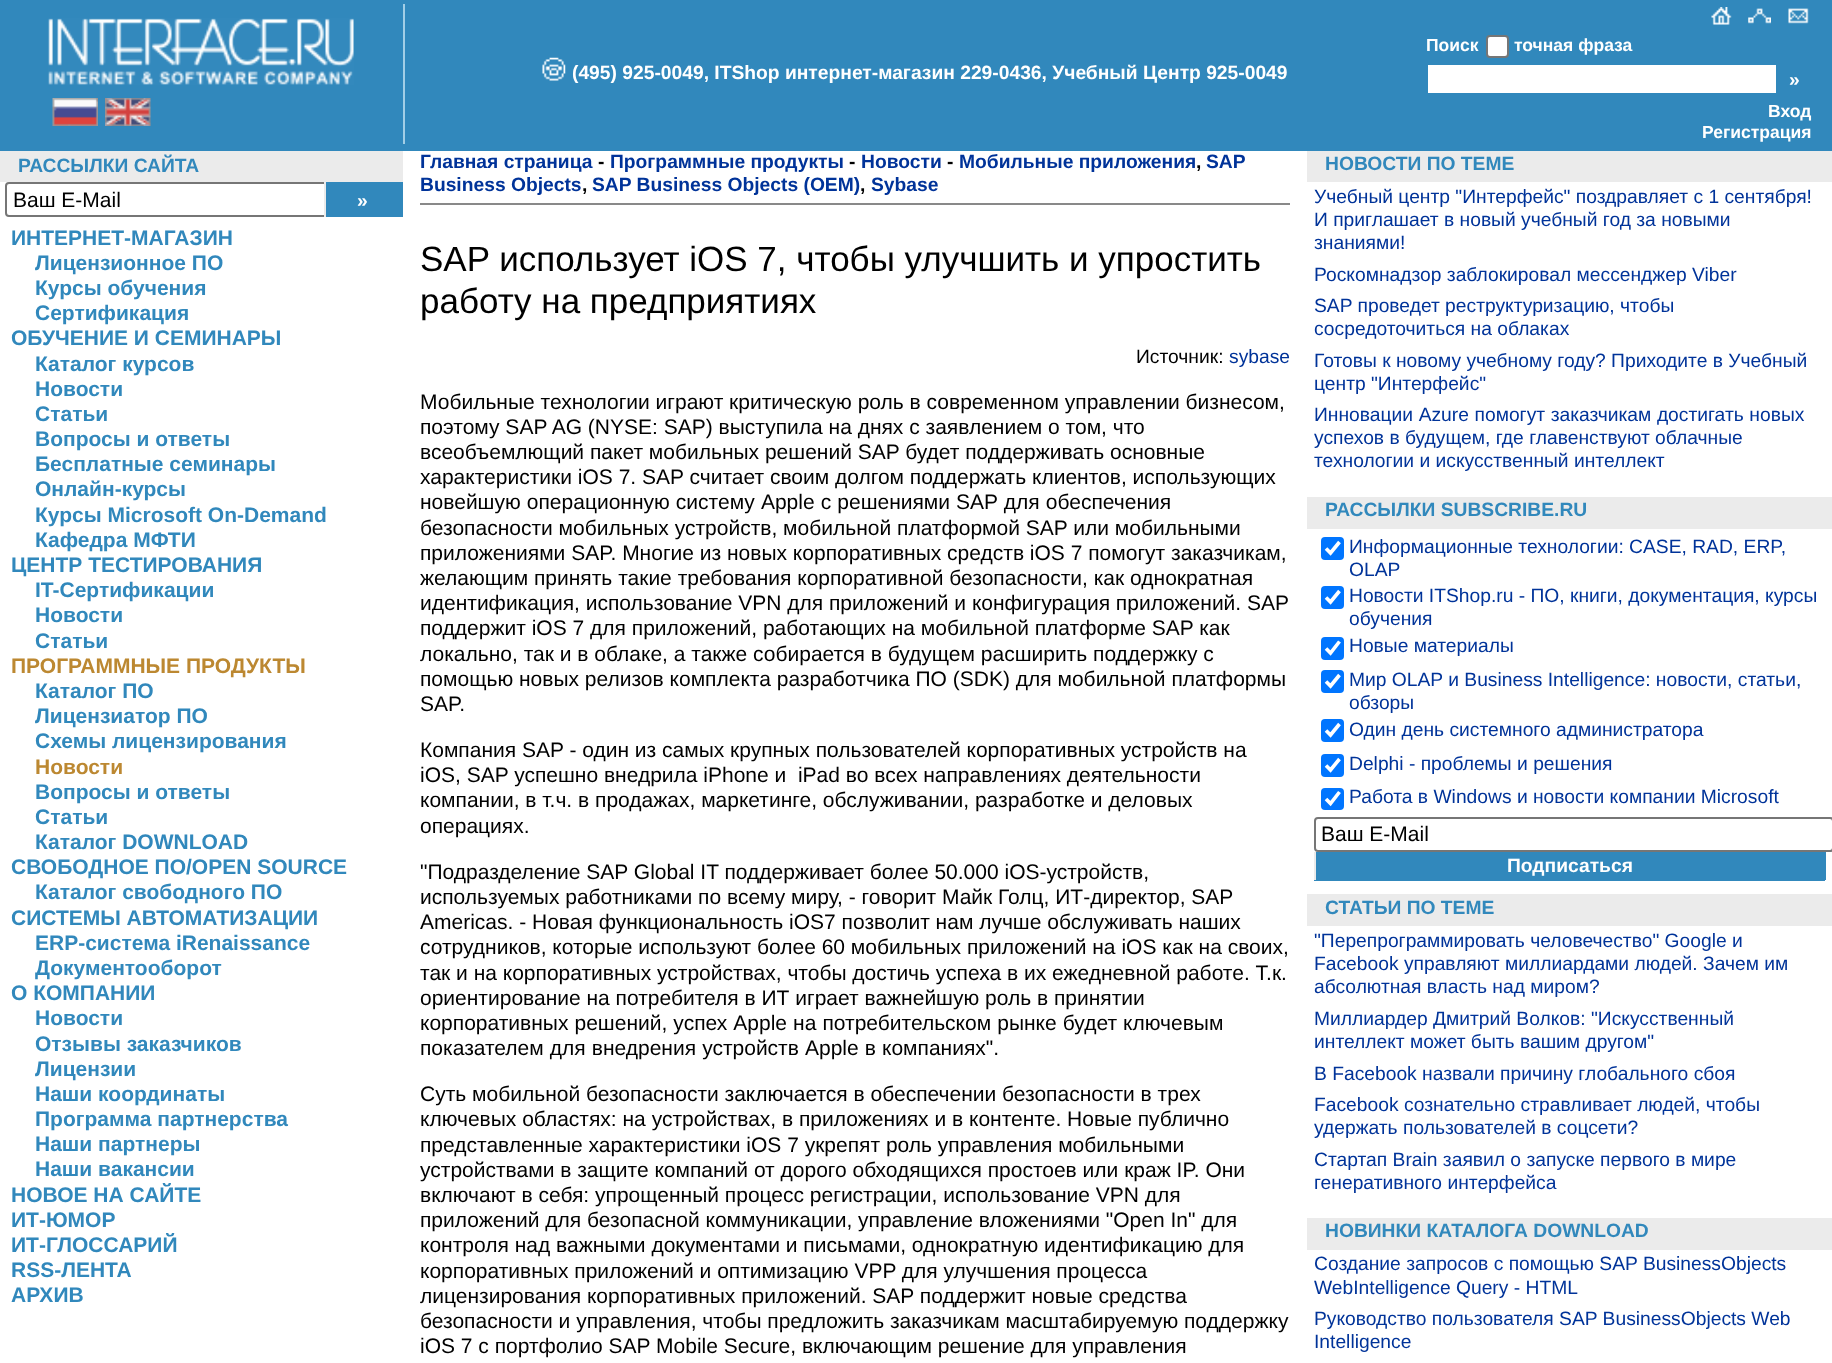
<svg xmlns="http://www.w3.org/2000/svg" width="1832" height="1363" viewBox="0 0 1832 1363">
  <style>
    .t1 { font: bold 19.25px Liberation Sans; fill: #fff; }
    .t2 { font: bold 17.5px Liberation Sans; fill: #fff; }
    .t3 { font: bold 19.25px Liberation Sans; fill: #3188bc; }
    .t4 { font: 21px Liberation Sans; fill: #000; }
    .t5 { font: bold 21px Liberation Sans; fill: #3188bc; }
    .t6 { font: bold 21px Liberation Sans; fill: #bc8831; }
    .t7 { font: bold 19.25px Liberation Sans; fill: #039; }
    .t8 { font: bold 19.25px Liberation Sans; fill: #000; }
    .t9 { font: 35px Liberation Sans; fill: #000; }
    .t10 { font: 19.25px Liberation Sans; fill: #000; }
    .t11 { font: 19.25px Liberation Sans; fill: #039; }
  </style>
  <rect width="100%" height="100%" fill="#fff"/>
  <rect x="0" y="0" width="1832" height="151" fill="#3188bc"/>
  <image x="48" y="18" width="306" height="67" href="images/1.png"/>
  <image x="52" y="98" width="46" height="28" href="images/2.png"/>
  <image x="105" y="98" width="46" height="28" href="images/3.png"/>
  <rect x="403" y="4" width="2" height="140" fill="#a2cee6"/>
  <image x="542" y="57" width="24" height="24" href="images/4.png"/>
  <text x="572" y="79" class="t1">(495) 925-0049, ITShop интернет-магазин 229-0436, Учебный Центр 925-0049</text>
  <image x="1711" y="7" width="21" height="18" href="images/5.png"/>
  <image x="1748" y="8" width="23" height="16" href="images/6.png"/>
  <image x="1788" y="8" width="21" height="16" href="images/7.png"/>
  <text x="1426" y="51" class="t2">Поиск</text>
  <rect x="1487" y="36" width="21" height="21" rx="3" fill="#fff" stroke="#767676" stroke-width="2"/>
  <text x="1514" y="51" class="t2">точная фраза</text>
  <rect x="1428" y="65" width="348" height="28" fill="#fff"/>
  <text x="1789" y="86" class="t1">»</text>
  <text x="1768" y="117" class="t2">Вход</text>
  <text x="1702" y="138" class="t2">Регистрация</text>
  <rect x="0" y="151" width="403" height="31" fill="#ebebeb"/>
  <text x="18" y="172" class="t3">РАССЫЛКИ САЙТА</text>
  <rect x="6" y="183" width="327" height="33" rx="3" fill="none" stroke="#767676" stroke-width="2"/>
  <text x="13" y="207" class="t4">Ваш E-Mail</text>
  <rect x="326" y="182" width="77" height="35" fill="#3188bc"/>
  <rect x="324" y="182" width="2" height="35" fill="#ebebeb"/>
  <text x="357" y="207" class="t1">»</text>
  <text x="11" y="245" class="t5">ИНТЕРНЕТ-МАГАЗИН</text>
  <text x="35" y="270" class="t5">Лицензионное ПО</text>
  <text x="35" y="295" class="t5">Курсы обучения</text>
  <text x="35" y="320" class="t5">Сертификация</text>
  <text x="11" y="345" class="t5">ОБУЧЕНИЕ И СЕМИНАРЫ</text>
  <text x="35" y="371" class="t5">Каталог курсов</text>
  <text x="35" y="396" class="t5">Новости</text>
  <text x="35" y="421" class="t5">Статьи</text>
  <text x="35" y="446" class="t5">Вопросы и ответы</text>
  <text x="35" y="471" class="t5">Бесплатные семинары</text>
  <text x="35" y="496" class="t5">Онлайн-курсы</text>
  <text x="35" y="522" class="t5">Курсы Microsoft On-Demand</text>
  <text x="35" y="547" class="t5">Кафедра МФТИ</text>
  <text x="11" y="572" class="t5">ЦЕНТР ТЕСТИРОВАНИЯ</text>
  <text x="35" y="597" class="t5">IT-Сертификации</text>
  <text x="35" y="622" class="t5">Новости</text>
  <text x="35" y="648" class="t5">Статьи</text>
  <text x="11" y="673" class="t6">ПРОГРАММНЫЕ ПРОДУКТЫ</text>
  <text x="35" y="698" class="t5">Каталог ПО</text>
  <text x="35" y="723" class="t5">Лицензиатор ПО</text>
  <text x="35" y="748" class="t5">Схемы лицензирования</text>
  <text x="35" y="774" class="t6">Новости</text>
  <text x="35" y="799" class="t5">Вопросы и ответы</text>
  <text x="35" y="824" class="t5">Статьи</text>
  <text x="35" y="849" class="t5">Каталог DOWNLOAD</text>
  <text x="11" y="874" class="t5">СВОБОДНОЕ ПО/OPEN SOURCE</text>
  <text x="35" y="899" class="t5">Каталог свободного ПО</text>
  <text x="11" y="925" class="t5">СИСТЕМЫ АВТОМАТИЗАЦИИ</text>
  <text x="35" y="950" class="t5">ERP-система iRenaissance</text>
  <text x="35" y="975" class="t5">Документооборот</text>
  <text x="11" y="1000" class="t5">О КОМПАНИИ</text>
  <text x="35" y="1025" class="t5">Новости</text>
  <text x="35" y="1051" class="t5">Отзывы заказчиков</text>
  <text x="35" y="1076" class="t5">Лицензии</text>
  <text x="35" y="1101" class="t5">Наши координаты</text>
  <text x="35" y="1126" class="t5">Программа партнерства</text>
  <text x="35" y="1151" class="t5">Наши партнеры</text>
  <text x="35" y="1176" class="t5">Наши вакансии</text>
  <text x="11" y="1202" class="t5">НОВОЕ НА САЙТЕ</text>
  <text x="11" y="1227" class="t5">ИТ-ЮМОР</text>
  <text x="11" y="1252" class="t5">ИТ-ГЛОССАРИЙ</text>
  <text x="11" y="1277" class="t5">RSS-ЛЕНТА</text>
  <text x="11" y="1302" class="t5">АРХИВ</text>
  <rect x="420" y="203" width="870" height="2" fill="#898989"/>
  <text x="420" y="168" class="t7">Главная страница</text>
  <text x="598" y="168" class="t8">-</text>
  <text x="610" y="168" class="t7">Программные продукты</text>
  <text x="849" y="168" class="t8">-</text>
  <text x="861" y="168" class="t7">Новости</text>
  <text x="947" y="168" class="t8">-</text>
  <text x="959" y="168" class="t7">Мобильные приложения</text>
  <text x="1206" y="168" class="t7">SAP</text>
  <text x="1196" y="168" class="t8">,</text>
  <text x="420" y="191" class="t7">Business Objects</text>
  <text x="582" y="191" class="t8">,</text>
  <text x="592" y="191" class="t7">SAP Business Objects (OEM)</text>
  <text x="860" y="191" class="t8">,</text>
  <text x="871" y="191" class="t7">Sybase</text>
  <text x="420" y="271" class="t9">SAP использует iOS 7, чтобы улучшить и упростить</text>
  <text x="420" y="313" class="t9">работу на предприятиях</text>
  <text x="1136" y="363" class="t10">Источник:</text>
  <text x="1229" y="363" class="t11">sybase</text>
  <text x="420" y="409" class="t4">Мобильные технологии играют критическую роль в современном управлении бизнесом,</text>
  <text x="420" y="434" class="t4">поэтому SAP AG (NYSE: SAP) выступила на днях с заявлением о том, что</text>
  <text x="420" y="459" class="t4">всеобъемлющий пакет мобильных решений SAP будет поддерживать основные</text>
  <text x="420" y="484" class="t4">характеристики iOS 7. SAP считает своим долгом поддержать клиентов, использующих</text>
  <text x="420" y="509" word-spacing="0.25" class="t4">новейшую операционную систему Apple с решениями SAP для обеспечения</text>
  <text x="420" y="535" class="t4">безопасности мобильных устройств, мобильной платформой SAP или мобильными</text>
  <text x="420" y="560" class="t4">приложениями SAP. Многие из новых корпоративных средств iOS 7 помогут заказчикам,</text>
  <text x="420" y="585" class="t4">желающим принять такие требования корпоративной безопасности, как однократная</text>
  <text x="420" y="610" class="t4">идентификация, использование VPN для приложений и конфигурация приложений. SAP</text>
  <text x="420" y="635" class="t4">поддержит iOS 7 для приложений, работающих на мобильной платформе SAP как</text>
  <text x="420" y="661" class="t4">локально, так и в облаке, а также собирается в будущем расширить поддержку с</text>
  <text x="420" y="686" class="t4">помощью новых релизов комплекта разработчика ПО (SDK) для мобильной платформы</text>
  <text x="420" y="711" class="t4">SAP.</text>
  <text x="420" y="757" class="t4">Компания SAP - один из самых крупных пользователей корпоративных устройств на</text>
  <text x="420" y="782" class="t4" xml:space="preserve">iOS, SAP успешно внедрила iPhone и  iPad во всех направлениях деятельности</text>
  <text x="420" y="807" class="t4">компании, в т.ч. в продажах, маркетинге, обслуживании, разработке и деловых</text>
  <text x="420" y="833" class="t4">операциях.</text>
  <text x="420" y="879" class="t4">"Подразделение SAP Global IT поддерживает более 50.000 iOS-устройств,</text>
  <text x="420" y="904" class="t4">используемых работниками по всему миру, - говорит Майк Голц, ИТ-директор, SAP</text>
  <text x="420" y="929" class="t4">Americas. - Новая функциональность iOS7 позволит нам лучше обслуживать наших</text>
  <text x="420" y="954" class="t4">сотрудников, которые используют более 60 мобильных приложений на iOS как на своих,</text>
  <text x="420" y="980" class="t4">так и на корпоративных устройствах, чтобы достичь успеха в их ежедневной работе. Т.к.</text>
  <text x="420" y="1005" class="t4">ориентирование на потребителя в ИТ играет важнейшую роль в принятии</text>
  <text x="420" y="1030" word-spacing="0.25" class="t4">корпоративных решений, успех Apple на потребительском рынке будет ключевым</text>
  <text x="420" y="1055" word-spacing="0.25" class="t4">показателем для внедрения устройств Apple в компаниях".</text>
  <text x="420" y="1101" class="t4">Суть мобильной безопасности заключается в обеспечении безопасности в трех</text>
  <text x="420" y="1126" class="t4">ключевых областях: на устройствах, в приложениях и в контенте. Новые публично</text>
  <text x="420" y="1152" class="t4">представленные характеристики iOS 7 укрепят роль управления мобильными</text>
  <text x="420" y="1177" class="t4">устройствами в защите компаний от дорого обходящихся простоев или краж IP. Они</text>
  <text x="420" y="1202" class="t4">включают в себя: упрощенный процесс регистрации, использование VPN для</text>
  <text x="420" y="1227" class="t4">приложений для безопасной коммуникации, управление вложениями "Open In" для</text>
  <text x="420" y="1252" class="t4">контроля над важными документами и письмами, однократную идентификацию для</text>
  <text x="420" y="1278" class="t4">корпоративных приложений и оптимизацию VPP для улучшения процесса</text>
  <text x="420" y="1303" class="t4">лицензирования корпоративных приложений. SAP поддержит новые средства</text>
  <text x="420" y="1328" class="t4">безопасности и управления, чтобы предложить заказчикам масштабируемую поддержку</text>
  <text x="420" y="1353" class="t4">iOS 7 с портфолио SAP Mobile Secure, включающим решение для управления</text>
  <rect x="1307" y="151" width="525" height="31" fill="#ebebeb"/>
  <text x="1325" y="170" class="t3">НОВОСТИ ПО ТЕМЕ</text>
  <text x="1314" y="203" class="t11">Учебный центр "Интерфейс" поздравляет с 1 сентября!</text>
  <text x="1314" y="226" class="t11">И приглашает в новый учебный год за новыми</text>
  <text x="1314" y="249" class="t11">знаниями!</text>
  <text x="1314" y="281" class="t11">Роскомнадзор заблокировал мессенджер Viber</text>
  <text x="1314" y="312" class="t11">SAP проведет реструктуризацию, чтобы</text>
  <text x="1314" y="335" class="t11">сосредоточиться на облаках</text>
  <text x="1314" y="367" class="t11">Готовы к новому учебному году? Приходите в Учебный</text>
  <text x="1314" y="390" class="t11">центр "Интерфейс"</text>
  <text x="1314" y="421" word-spacing="0.25" class="t11">Инновации Azure помогут заказчикам достигать новых</text>
  <text x="1314" y="444" class="t11">успехов в будущем, где главенствуют облачные</text>
  <text x="1314" y="467" class="t11">технологии и искусственный интеллект</text>
  <rect x="1307" y="497" width="525" height="32" fill="#ebebeb"/>
  <text x="1325" y="516" class="t3">РАССЫЛКИ SUBSCRIBE.RU</text>
  <rect x="1321" y="537" width="23" height="23" rx="4" fill="#0075ff"/>
  <path d="M1326 548.5L1330.5 553L1339.5 542" fill="none" stroke="#fff" stroke-width="3.6"/>
  <text x="1349" y="553" class="t11">Информационные технологии: CASE, RAD, ERP,</text>
  <text x="1349" y="576" class="t11">OLAP</text>
  <rect x="1321" y="586" width="23" height="23" rx="4" fill="#0075ff"/>
  <path d="M1326 597.5L1330.5 602L1339.5 591" fill="none" stroke="#fff" stroke-width="3.6"/>
  <text x="1349" y="602" class="t11">Новости ITShop.ru - ПО, книги, документация, курсы</text>
  <text x="1349" y="625" class="t11">обучения</text>
  <rect x="1321" y="637" width="23" height="23" rx="4" fill="#0075ff"/>
  <path d="M1326 648.5L1330.5 653L1339.5 641.5" fill="none" stroke="#fff" stroke-width="3.6"/>
  <text x="1349" y="652" class="t11">Новые материалы</text>
  <rect x="1321" y="670" width="23" height="23" rx="4" fill="#0075ff"/>
  <path d="M1326 681.5L1330.5 686L1339.5 675" fill="none" stroke="#fff" stroke-width="3.6"/>
  <text x="1349" y="686" class="t11">Мир OLAP и Business Intelligence: новости, статьи,</text>
  <text x="1349" y="709" class="t11">обзоры</text>
  <rect x="1321" y="719" width="23" height="23" rx="4" fill="#0075ff"/>
  <path d="M1326 730.5L1330.5 735L1339.5 724" fill="none" stroke="#fff" stroke-width="3.6"/>
  <text x="1349" y="736" class="t11">Один день системного администратора</text>
  <rect x="1321" y="754" width="23" height="23" rx="4" fill="#0075ff"/>
  <path d="M1326 765.5L1330.5 770L1339.5 759" fill="none" stroke="#fff" stroke-width="3.6"/>
  <text x="1349" y="770" class="t11">Delphi - проблемы и решения</text>
  <rect x="1321" y="788" width="23" height="22" rx="4" fill="#0075ff"/>
  <path d="M1326 799L1330.5 803.5L1339.5 792" fill="none" stroke="#fff" stroke-width="3.6"/>
  <text x="1349" y="803" class="t11">Работа в Windows и новости компании Microsoft</text>
  <rect x="1315" y="818" width="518" height="33" rx="3" fill="none" stroke="#767676" stroke-width="2"/>
  <text x="1321" y="841" class="t4">Ваш E-Mail</text>
  <rect x="1316" y="852" width="508" height="27" fill="#3188bc"/>
  <rect x="1824" y="852" width="2" height="28" fill="#3188bc"/>
  <rect x="1314" y="879" width="511" height="2" fill="#3188bc"/>
  <rect x="1314" y="852" width="2" height="28" fill="#ebebeb"/>
  <text x="1507" y="872" class="t1">Подписаться</text>
  <rect x="1307" y="894" width="525" height="32" fill="#ebebeb"/>
  <text x="1325" y="914" class="t3">СТАТЬИ ПО ТЕМЕ</text>
  <text x="1314" y="947" class="t11">"Перепрограммировать человечество" Google и</text>
  <text x="1314" y="970" class="t11">Facebook управляют миллиардами людей. Зачем им</text>
  <text x="1314" y="993" class="t11">абсолютная власть над миром?</text>
  <text x="1314" y="1025" class="t11">Миллиардер Дмитрий Волков: "Искусственный</text>
  <text x="1314" y="1048" class="t11">интеллект может быть вашим другом"</text>
  <text x="1314" y="1080" class="t11">В Facebook назвали причину глобального сбоя</text>
  <text x="1314" y="1111" class="t11">Facebook сознательно стравливает людей, чтобы</text>
  <text x="1314" y="1134" class="t11">удержать пользователей в соцсети?</text>
  <text x="1314" y="1166" class="t11">Стартап Brain заявил о запуске первого в мире</text>
  <text x="1314" y="1189" class="t11">генеративного интерфейса</text>
  <rect x="1307" y="1218" width="525" height="32" fill="#ebebeb"/>
  <text x="1325" y="1237" class="t3">НОВИНКИ КАТАЛОГА DOWNLOAD</text>
  <text x="1314" y="1270" class="t11">Создание запросов с помощью SAP BusinessObjects</text>
  <text x="1314" y="1294" class="t11">WebIntelligence Query - HTML</text>
  <text x="1314" y="1325" class="t11">Руководство пользователя SAP BusinessObjects Web</text>
  <text x="1314" y="1348" class="t11">Intelligence</text>
</svg>
